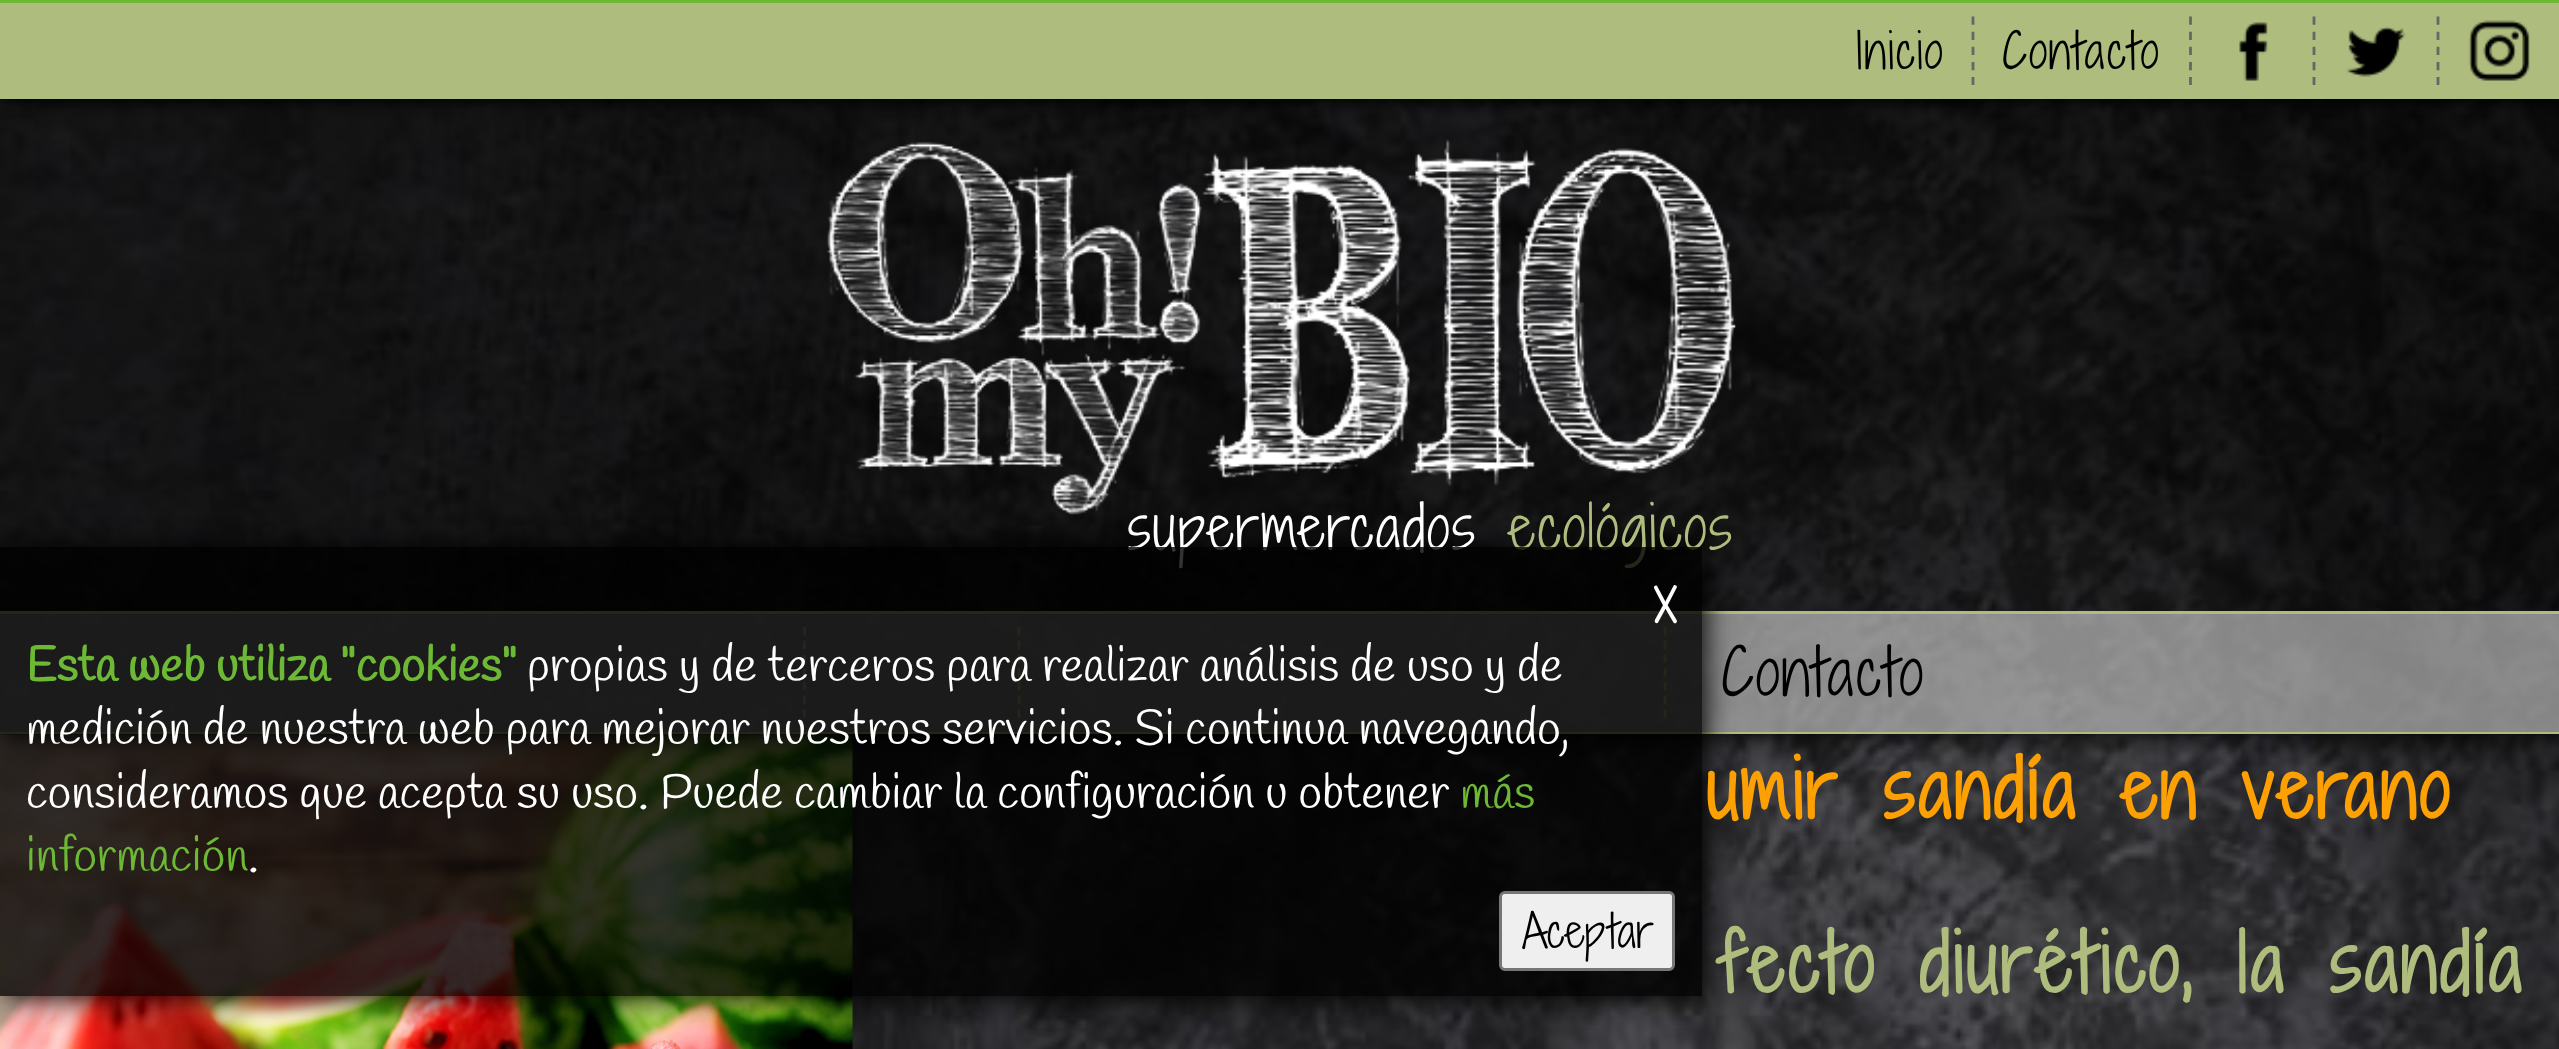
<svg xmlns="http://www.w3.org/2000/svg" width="2559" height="1049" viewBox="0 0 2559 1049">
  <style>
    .t1 { font: 300 58.75px Shadows Into Light Two; letter-spacing: 1.8px; fill: #fff; }
    .t2 { font: 300 58.75px Shadows Into Light Two; letter-spacing: 1.8px; fill: #aebd7e; }
    .t3 { font: bold 44px Shadows Into Light Two; fill: #fff; }
    .t4 { font: bold 48.4px Handlee; fill: #6db935; }
    .t5 { font: 48.4px Handlee; fill: #fff; }
    .t6 { font: 48.4px Handlee; fill: #6db935; }
    .t7 { font: 300 44px Shadows Into Light Two; fill: #000; }
    .t8 { font: 300 47.5px Shadows Into Light Two; letter-spacing: 1.8px; fill: #000; }
    .t9 { font: 300 62.5px Shadows Into Light Two; letter-spacing: 1.8px; fill: #000; }
    .t10 { font: bold 77px Shadows Into Light Two; letter-spacing: 3.7px; fill: #fda003; }
    .t11 { font: bold 77px Shadows Into Light Two; letter-spacing: 3.7px; fill: #aebd7e; }
  </style>
  <defs>
    <clipPath id="clip1"><rect x="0" y="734" width="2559" height="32"/></clipPath>
    <clipPath id="clip2"><path d="M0 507H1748V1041H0ZM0 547H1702V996H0Z" clip-rule="evenodd"/></clipPath>
  </defs>
  <rect width="100%" height="100%" fill="#fff"/>
  <image x="0" y="99" width="2559" height="950" href="images/1.png"/>
  <image x="0" y="734" width="853" height="315" href="images/6.png"/>
  <g clip-path="url(#clip1)">
    <rect x="3" y="3" width="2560" height="734" fill="#000" filter="blur(14px)"/>
  </g>
  <rect x="0" y="99" width="2559" height="633" fill="#00000080"/>
  <image x="827" y="140" width="909" height="375" href="images/5.png"/>
  <rect x="0" y="614" width="2559" height="118" fill="#ffffff80"/>
  <rect x="0" y="611" width="2559" height="3" fill="#aebd7e"/>
  <rect x="0" y="732" width="2559" height="2" fill="#aebd7e"/>
  <path d="M804.5 627V718" fill="none" stroke="#aebd7e" stroke-width="2.8" stroke-dasharray="8.25 5.5"/>
  <path d="M1019 627V718" fill="none" stroke="#aebd7e" stroke-width="2.8" stroke-dasharray="8.25 5.5"/>
  <path d="M1665 627V718" fill="none" stroke="#aebd7e" stroke-width="2.8" stroke-dasharray="8.25 5.5"/>
  <g clip-path="url(#clip2)">
    <rect x="3" y="550" width="1702" height="448" fill="#000" filter="blur(14px)"/>
  </g>
  <text x="1127" y="550" class="t1">supermercados</text>
  <text x="1508" y="550" class="t2">ecológicos</text>
  <rect x="0" y="547" width="1702" height="449" fill="#000000cc"/>
  <text x="1654" y="623" class="t3">X</text>
  <text x="26" y="681" class="t4">Esta web utiliza "cookies"</text>
  <text x="527" y="681" class="t5">propias y de terceros para realizar análisis de uso y de</text>
  <text x="26" y="744" class="t5">medición de nuestra web para mejorar nuestros servicios. Si continua navegando,</text>
  <text x="26" y="808" class="t5">consideramos que acepta su uso. Puede cambiar la configuración u obtener</text>
  <text x="1460" y="808" class="t6">más</text>
  <text x="26" y="871" class="t6">información</text>
  <text x="248" y="871" class="t5">.</text>
  <rect x="1500.5" y="892.5" width="173" height="77" rx="4.5" fill="#efefef" stroke="#767676" stroke-width="3"/>
  <text x="1522" y="948" class="t7">Aceptar</text>
  <rect x="3" y="3" width="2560" height="99" fill="#000" filter="blur(7px)"/>
  <rect x="0" y="3" width="2559" height="96" fill="#aebd7e"/>
  <rect x="0" y="0" width="2559" height="3" fill="#6db935"/>
  <text x="1856" y="69" class="t8">Inicio</text>
  <path d="M1973 16.5V85" fill="none" stroke="#666" stroke-width="2.8" stroke-dasharray="8.25 6.88"/>
  <text x="2002" y="69" class="t8">Contacto</text>
  <path d="M2190.5 16.5V85" fill="none" stroke="#666" stroke-width="2.8" stroke-dasharray="8.25 6.88"/>
  <image x="2239" y="22" width="29" height="59" href="images/2.png"/>
  <path d="M2314 16.5V85" fill="none" stroke="#666" stroke-width="2.8" stroke-dasharray="8.25 6.88"/>
  <image x="2346" y="26" width="60" height="51" href="images/3.png"/>
  <path d="M2438 16.5V85" fill="none" stroke="#666" stroke-width="2.8" stroke-dasharray="8.25 6.88"/>
  <image x="2468" y="20" width="62" height="61" href="images/4.png"/>
  <text x="1721" y="696" class="t9">Contacto</text>
  <text x="1706" y="819" class="t10">umir sandía en verano</text>
  <text x="1717" y="993" class="t11">fecto diurético, la sandía</text>
</svg>
